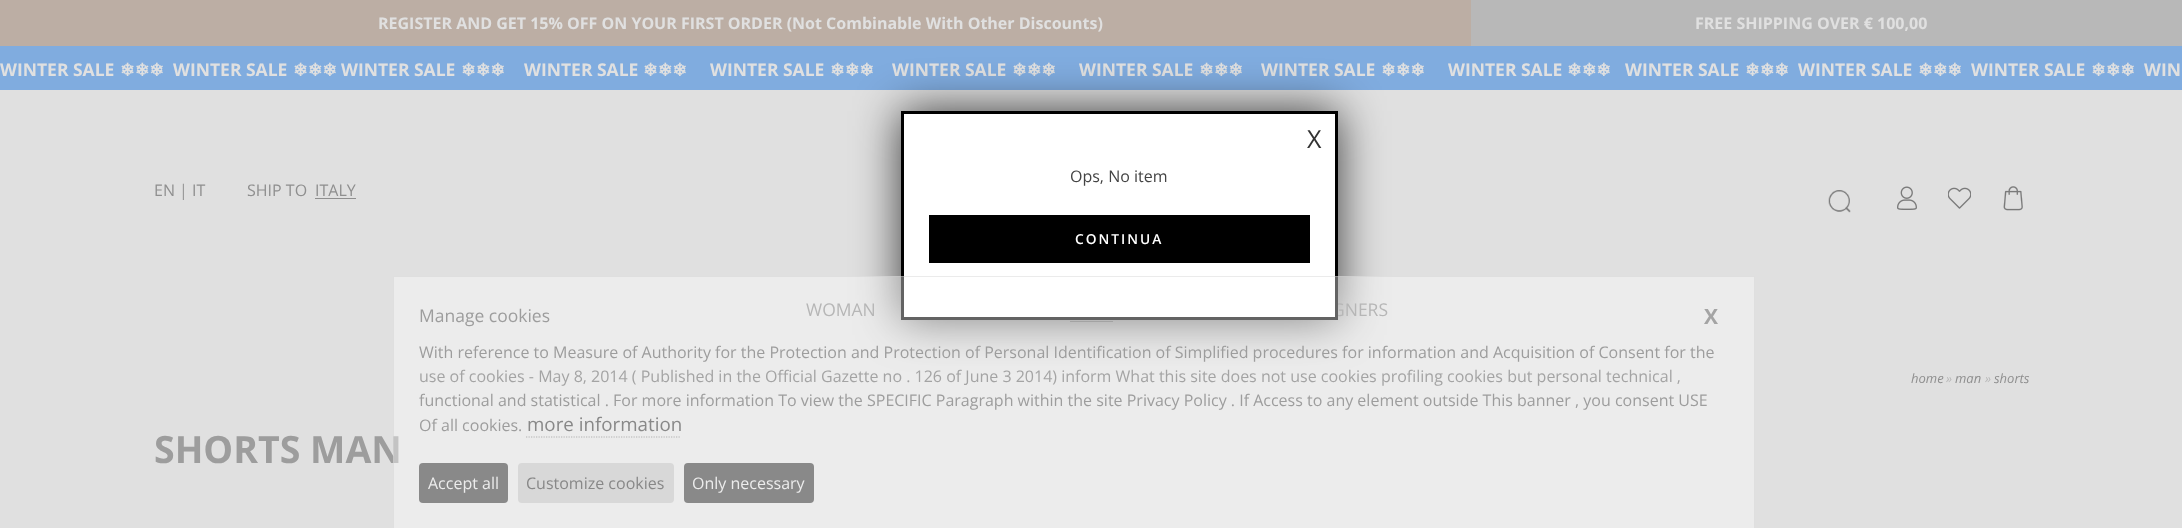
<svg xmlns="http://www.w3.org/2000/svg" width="2182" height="528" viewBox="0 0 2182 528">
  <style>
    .t1 { font: bold 16px Open Sans; fill: #e0e0e0; }
    .t2 { font: bold 17.5px Open Sans; fill: #e0e0e0; }
    .t3 { font: bold 17.5px DejaVu Sans; fill: #e0e0e0; }
    .t4 { font: 16px Open Sans; fill: #8f8f8f; }
    .t5 { font: 16px Open Sans; fill: #969696; }
    .t6 { font: 17.5px Open Sans; fill: #888; }
    .t7 { font: 25px Open Sans; fill: #333; }
    .t8 { font: 16px Open Sans; fill: #444; }
    .t9 { font: 600 13.75px Open Sans; letter-spacing: 2px; fill: #fff; }
    .t10 { font: bold 37.5px Open Sans; fill: #9d9d9d; }
    .t11 { font: 17.5px Open Sans; fill: #9d9d9d; }
    .t12 { font: bold 21px Open Sans; fill: #a4a4a4; }
    .t13 { font: 16px Open Sans; fill: #9d9d9d; }
    .t14 { font: 16px Open Sans; fill: #a4a4a4; }
    .t15 { font: 18.75px Open Sans; fill: #888; }
    .t16 { font: 16px Open Sans; fill: #ececec; }
    .t17 { font: 16px Open Sans; fill: #888; }
    .t18 { font: italic 13px Open Sans; fill: #8f8f8f; }
    .t19 { font: italic 13px Open Sans; fill: #b8b8b8; }
  </style>
  <rect width="100%" height="100%" fill="#e0e0e0"/>
  <rect x="0" y="0" width="1471" height="46" fill="#bcaea4"/>
  <text x="378" y="29" class="t1">REGISTER AND GET 15% OFF ON YOUR FIRST ORDER (Not Combinable With Other Discounts)</text>
  <rect x="1471" y="0" width="711" height="46" fill="#b8b8b8"/>
  <text x="1695" y="29" class="t1">FREE SHIPPING OVER € 100,00</text>
  <rect x="0" y="46" width="2182" height="44" fill="#80acdf"/>
  <text x="0" y="76" class="t2">WINTER SALE</text>
  <text x="120" y="76" class="t3">❄❄❄</text>
  <text x="173" y="76" class="t2">WINTER SALE</text>
  <text x="293" y="76" class="t3">❄❄❄</text>
  <text x="341" y="76" class="t2">WINTER SALE</text>
  <text x="461" y="76" class="t3">❄❄❄</text>
  <text x="524" y="76" class="t2">WINTER SALE</text>
  <text x="643" y="76" class="t3">❄❄❄</text>
  <text x="710" y="76" class="t2">WINTER SALE</text>
  <text x="830" y="76" class="t3">❄❄❄</text>
  <text x="892" y="76" class="t2">WINTER SALE</text>
  <text x="1012" y="76" class="t3">❄❄❄</text>
  <text x="1079" y="76" class="t2">WINTER SALE</text>
  <text x="1199" y="76" class="t3">❄❄❄</text>
  <text x="1261" y="76" class="t2">WINTER SALE</text>
  <text x="1381" y="76" class="t3">❄❄❄</text>
  <text x="1448" y="76" class="t2">WINTER SALE</text>
  <text x="1567" y="76" class="t3">❄❄❄</text>
  <text x="1625" y="76" class="t2">WINTER SALE</text>
  <text x="1745" y="76" class="t3">❄❄❄</text>
  <text x="1798" y="76" class="t2">WINTER SALE</text>
  <text x="1918" y="76" class="t3">❄❄❄</text>
  <text x="1971" y="76" class="t2">WINTER SALE</text>
  <text x="2091" y="76" class="t3">❄❄❄</text>
  <text x="2144" y="76" class="t2">WIN</text>
  <text x="154" y="196" class="t4">EN</text>
  <text x="179" y="196" class="t5">|</text>
  <text x="192" y="196" class="t4">IT</text>
  <text x="247" y="196" class="t4">SHIP TO</text>
  <text x="315" y="196" class="t4">ITALY</text>
  <rect x="315" y="198" width="41" height="1" fill="#8f8f8f"/>
  <image x="1828" y="190" width="23" height="23" href="images/1.png"/>
  <image x="1897" y="186" width="20" height="24" href="images/2.png"/>
  <image x="1948" y="187" width="23" height="22" href="images/3.png"/>
  <image x="2003" y="186" width="20" height="25" href="images/4.png"/>
  <rect x="1070" y="321" width="43" height="1" fill="#a3a3a3"/>
  <rect x="901" y="111" width="437" height="209" fill="#000000bf" filter="blur(23px)"/>
  <text x="1332" y="316" class="t6">GNERS</text>
  <rect x="902.5" y="112.5" width="434" height="206" fill="#fff" stroke="#000" stroke-width="3"/>
  <text x="1307" y="148" class="t7">X</text>
  <text x="1070" y="182" class="t8">Ops, No item</text>
  <rect x="929" y="215" width="381" height="48" fill="#000"/>
  <text x="1075" y="244" class="t9">CONTINUA</text>
  <text x="806" y="316" class="t6">WOMAN</text>
  <text x="154" y="463" class="t10">SHORTS MAN</text>
  <rect x="393" y="276" width="1362" height="252" fill="#ffffff63"/>
  <rect x="393.5" y="276.5" width="1361" height="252" fill="none" stroke="#cccccc63"/>
  <text x="419" y="322" class="t11">Manage cookies</text>
  <text x="1704" y="324" class="t12">X</text>
  <text x="419" y="358" class="t13">With reference to Measure of Authority for the Protection and Protection of Personal Identification of Simplified procedures for information and Acquisition of Consent for the</text>
  <text x="419" y="382" class="t14">use of cookies - May 8, 2014 ( Published in the Official Gazette no . 126 of June 3 2014) inform What this site does not use cookies profiling cookies but personal technical ,</text>
  <text x="419" y="406" class="t13">functional and statistical . For more information To view the SPECIFIC Paragraph within the site Privacy Policy . If Access to any element outside This banner , you consent USE</text>
  <text x="419" y="431" class="t13">Of all cookies.</text>
  <text x="527" y="431" class="t15">more information</text>
  <path d="M526 437H681" fill="none" stroke="#b2b2b2" stroke-width="1.2" stroke-dasharray="1.25 1.25"/>
  <rect x="419" y="463" width="89" height="40" rx="4" fill="#898989"/>
  <text x="428" y="489" class="t16">Accept all</text>
  <rect x="518" y="463" width="156" height="40" rx="4" fill="#d8d8d8"/>
  <text x="526" y="489" class="t17">Customize cookies</text>
  <rect x="684" y="463" width="130" height="40" rx="4" fill="#898989"/>
  <text x="692" y="489" class="t16">Only necessary</text>
  <text x="1911" y="383" class="t18">home</text>
  <text x="1946" y="383" class="t19">»</text>
  <text x="1955" y="383" class="t18">man</text>
  <text x="1985" y="383" class="t19">»</text>
  <text x="1994" y="383" class="t18">shorts</text>
</svg>
